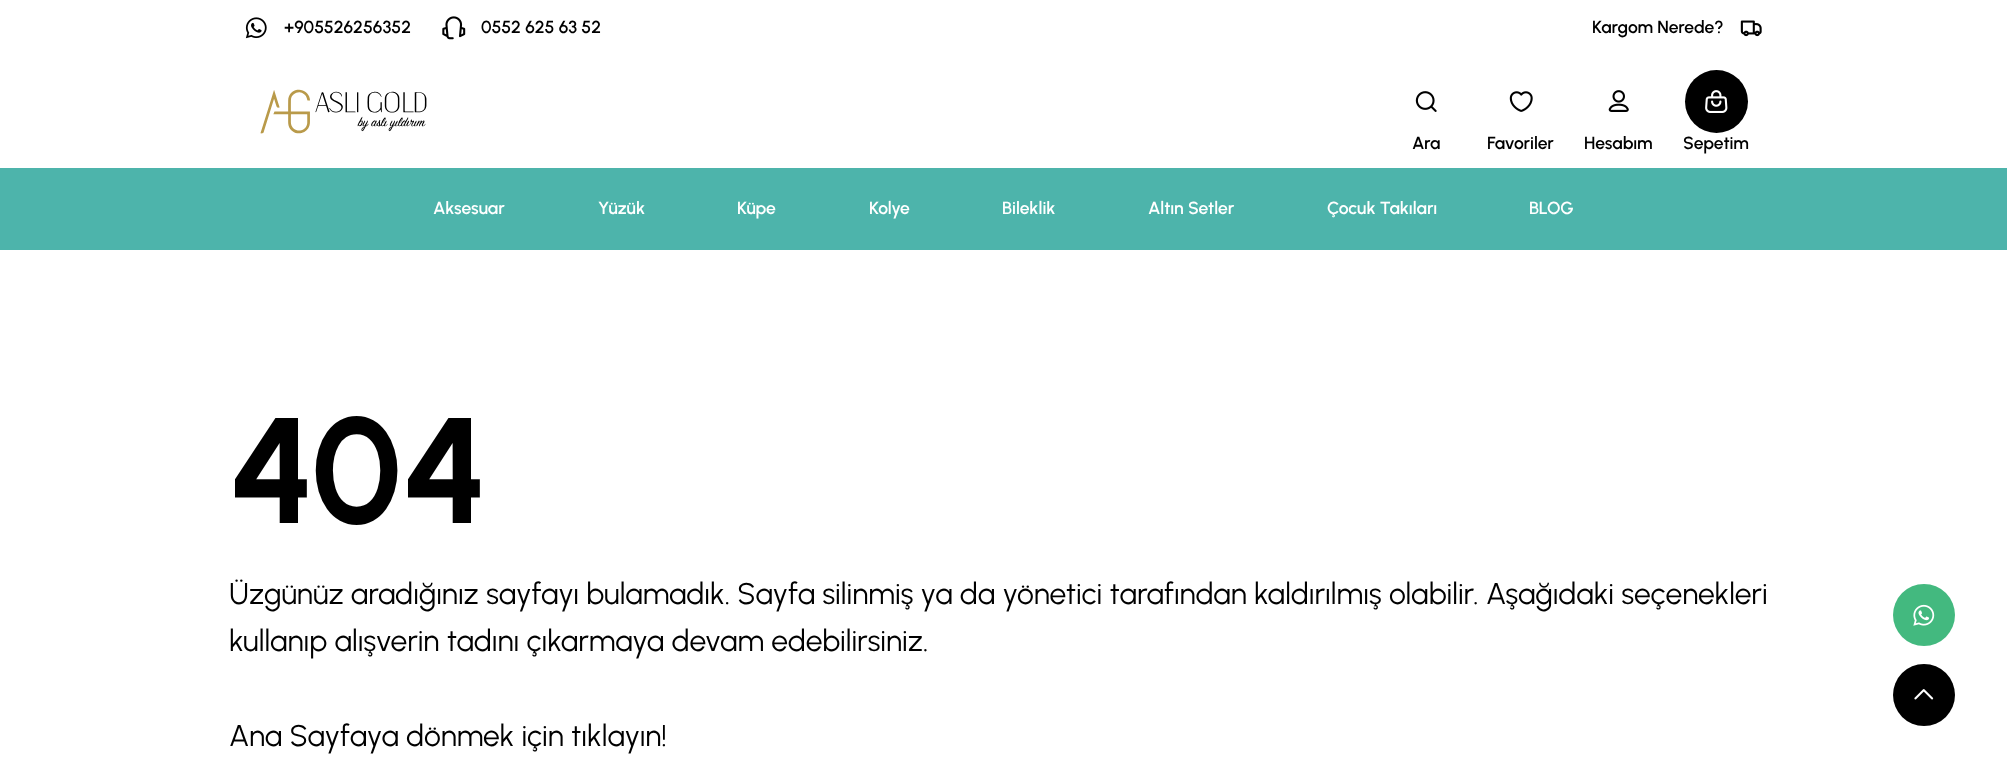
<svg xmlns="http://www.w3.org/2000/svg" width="2007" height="778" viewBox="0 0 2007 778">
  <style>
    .t1 { font: 600 17.5px Urbanist; fill: #000; }
    .t2 { font: 600 17.5px Urbanist; fill: #fff; }
    .t3 { font: bold 150px Urbanist; fill: #000; }
    .t4 { font: 30px Urbanist; fill: #000; }
  </style>
  <rect width="100%" height="100%" fill="#fff"/>
  <image x="245" y="17" width="22" height="22" href="images/1.png"/>
  <text x="284" y="33" class="t1">+905526256352</text>
  <image x="442" y="16" width="24" height="24" href="images/2.png"/>
  <text x="481" y="33" class="t1">0552 625 63 52</text>
  <text x="1592" y="33" class="t1">Kargom Nerede?</text>
  <image x="1740" y="20" width="22" height="17" href="images/3.png"/>
  <image x="260" y="89" width="167" height="45" href="images/4.png"/>
  <image x="1415" y="91" width="22" height="21" href="images/5.png"/>
  <text x="1412" y="149" class="t1">Ara</text>
  <image x="1509" y="91" width="24" height="21" href="images/6.png"/>
  <text x="1487" y="149" class="t1">Favoriler</text>
  <image x="1608" y="90" width="21" height="22" href="images/7.png"/>
  <text x="1584" y="149" class="t1">Hesabım</text>
  <circle cx="1716.5" cy="101.5" r="31.5" fill="#000"/>
  <image x="1705" y="90" width="23" height="23" href="images/8.png"/>
  <text x="1683" y="149" class="t1">Sepetim</text>
  <rect x="0" y="168" width="2007" height="82" fill="#4db4ab"/>
  <text x="433" y="214" class="t2">Aksesuar</text>
  <text x="598" y="214" class="t2">Yüzük</text>
  <text x="737" y="214" class="t2">Küpe</text>
  <text x="869" y="214" class="t2">Kolye</text>
  <text x="1002" y="214" class="t2">Bileklik</text>
  <text x="1148" y="214" class="t2">Altın Setler</text>
  <text x="1327" y="214" class="t2">Çocuk Takıları</text>
  <text x="1529" y="214" class="t2">BLOG</text>
  <text x="229" y="523" class="t3">404</text>
  <text x="229" y="604" class="t4">Üzgünüz aradığınız sayfayı bulamadık. Sayfa silinmiş ya da yönetici tarafından kaldırılmış olabilir. Aşağıdaki seçenekleri</text>
  <text x="229" y="651" class="t4">kullanıp alışverin tadını çıkarmaya devam edebilirsiniz.</text>
  <text x="229" y="746" class="t4">Ana Sayfaya dönmek için tıklayın!</text>
  <circle cx="1924" cy="615" r="31" fill="#43b97f"/>
  <image x="1913" y="604" width="22" height="22" href="images/9.png"/>
  <circle cx="1924" cy="695" r="31" fill="#000"/>
  <image x="1914" y="689" width="20" height="11" href="images/10.png"/>
</svg>
